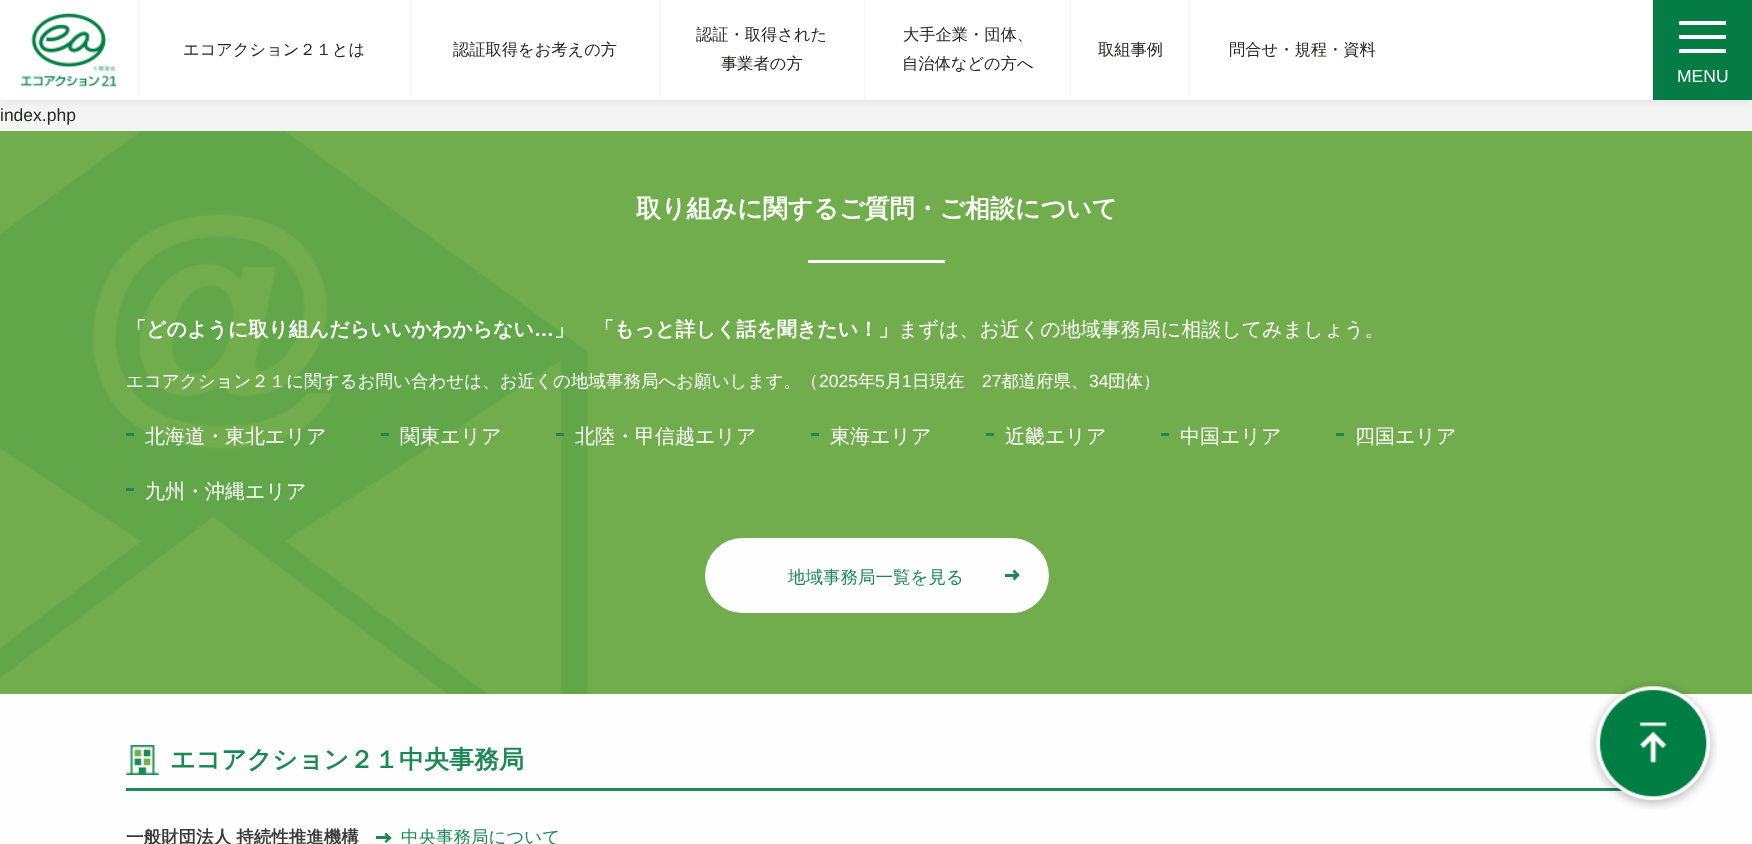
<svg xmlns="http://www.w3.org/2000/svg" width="1752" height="844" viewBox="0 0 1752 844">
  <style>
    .t1 { font: 500 16.25px WenQuanYi Zen Hei; fill: #242724; }
    .t2 { font: 17.5px Liberation Sans; fill: #242724; }
    .t3 { font: bold 25px WenQuanYi Zen Hei; fill: #fefefe; }
    .t4 { font: bold 20px WenQuanYi Zen Hei; fill: #fefefe; }
    .t5 { font: bold 20px Liberation Sans; fill: #fefefe; }
    .t6 { font: 500 20px WenQuanYi Zen Hei; fill: #fefefe; }
    .t7 { font: 500 17.5px WenQuanYi Zen Hei; fill: #fefefe; }
    .t8 { font: 17.5px Liberation Sans; fill: #fefefe; }
    .t9 { font: 500 17.5px WenQuanYi Zen Hei; fill: #1d8855; }
    .t10 { font: bold 25px WenQuanYi Zen Hei; fill: #1d8855; }
    .t11 { font: bold 17.5px WenQuanYi Zen Hei; fill: #393b39; }
  </style>
  <rect width="100%" height="100%" fill="#f4f4f4"/>
  <rect x="0" y="3" width="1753" height="100" fill="#0000000f" filter="blur(4px)"/>
  <rect x="0" y="0" width="1653" height="100" fill="#fff"/>
  <image x="21" y="13" width="96" height="74" href="images/1.png"/>
  <rect x="138" y="0" width="1" height="100" fill="#f6f6f6"/>
  <text x="183" y="55" class="t1">エコアクション２１とは</text>
  <rect x="410" y="0" width="1" height="100" fill="#f6f6f6"/>
  <text x="453" y="55" class="t1">認証取得をお考えの方</text>
  <rect x="659" y="0" width="1" height="100" fill="#f6f6f6"/>
  <text x="696" y="40" class="t1">認証・取得された</text>
  <text x="721" y="69" class="t1">事業者の方</text>
  <rect x="864" y="0" width="1" height="100" fill="#f6f6f6"/>
  <text x="903" y="40" class="t1">大手企業・団体、</text>
  <text x="902" y="69" class="t1">自治体などの方へ</text>
  <path d="M976 72.5L969 79.5L967 78L974 70.5Z" fill="#fff"/>
  <path d="M970.5 78L969 79.5L961.5 72.5L963.5 70.5Z" fill="#fff"/>
  <rect x="1070" y="0" width="1" height="100" fill="#f6f6f6"/>
  <text x="1098" y="55" class="t1">取組事例</text>
  <rect x="1189" y="0" width="1" height="100" fill="#f6f6f6"/>
  <text x="1229" y="55" class="t1">問合せ・規程・資料</text>
  <text x="0" y="121" class="t2">index.php</text>
  <rect x="0" y="131" width="1752" height="563" fill="#71ad4d"/>
  <image x="0" y="131" width="588" height="563" href="images/2.png"/>
  <text x="636" y="217" class="t3">取り組みに関するご質問・ご相談について</text>
  <rect x="808" y="260" width="137" height="3" fill="#fefefe"/>
  <text x="126" y="336" class="t4">「どのように取り組んだらいいかわからない</text>
  <text x="534" y="336" class="t5">…</text>
  <text x="554" y="336" class="t4">」　「もっと詳しく話を聞きたい！」</text>
  <text x="898" y="336" class="t6">まずは、お近くの地域事務局に相談してみましょう。</text>
  <text x="126" y="387" class="t7">エコアクション２１に関するお問い合わせは、お近くの地域事務局へお願いします。（</text>
  <text x="819" y="387" class="t8">2025</text>
  <text x="858" y="387" class="t7">年</text>
  <text x="875" y="387" class="t8">5</text>
  <text x="885" y="387" class="t7">月</text>
  <text x="902" y="387" class="t8">1</text>
  <text x="912" y="387" class="t7">日現在</text>
  <text x="982" y="387" class="t8">27</text>
  <text x="1001" y="387" class="t7">都道府県、</text>
  <text x="1089" y="387" class="t8">34</text>
  <text x="1108" y="387" class="t7">団体）</text>
  <rect x="126" y="433" width="8" height="3" fill="#1d8855"/>
  <text x="145" y="443" class="t6">北海道・東北エリア</text>
  <rect x="381" y="433" width="8" height="3" fill="#1d8855"/>
  <text x="400" y="443" class="t6">関東エリア</text>
  <rect x="556" y="433" width="8" height="3" fill="#1d8855"/>
  <text x="575" y="443" class="t6">北陸・甲信越エリア</text>
  <rect x="811" y="433" width="8" height="3" fill="#1d8855"/>
  <text x="830" y="443" class="t6">東海エリア</text>
  <rect x="986" y="433" width="8" height="3" fill="#1d8855"/>
  <text x="1005" y="443" class="t6">近畿エリア</text>
  <rect x="1161" y="433" width="8" height="3" fill="#1d8855"/>
  <text x="1180" y="443" class="t6">中国エリア</text>
  <rect x="1336" y="433" width="8" height="3" fill="#1d8855"/>
  <text x="1355" y="443" class="t6">四国エリア</text>
  <rect x="126" y="488" width="8" height="3" fill="#1d8855"/>
  <text x="145" y="498" class="t6">九州・沖縄エリア</text>
  <rect x="705" y="538" width="344" height="75" rx="37.5" fill="#fefefe"/>
  <text x="788" y="583" class="t9">地域事務局一覧を見る</text>
  <rect x="1005" y="574" width="13" height="3" fill="#1d8855"/>
  <path d="M1014.5 569.5L1019.5 575L1018 577L1012.5 571.5Z" fill="#1d8855"/>
  <path d="M1018 573L1019.5 575L1014.5 580.5L1012.5 578.5Z" fill="#1d8855"/>
  <rect x="0" y="694" width="1752" height="150" fill="#fefefe"/>
  <image x="126" y="745" width="33" height="30" href="images/3.png"/>
  <rect x="126" y="788" width="1500" height="3" fill="#1d8855"/>
  <text x="170" y="768" class="t10">エコアクション２１中央事務局</text>
  <text x="126" y="843" class="t11">一般財団法人 持続性推進機構</text>
  <rect x="376" y="836" width="13" height="3" fill="#1d8855"/>
  <path d="M386 832.5L391.5 838L389.5 839.5L384.5 834.5Z" fill="#1d8855"/>
  <path d="M389.5 836L391.5 838L386 843L384.5 841.5Z" fill="#1d8855"/>
  <text x="401" y="843" class="t9">中央事務局について</text>
  <rect x="1653" y="0" width="99" height="100" fill="#057c44"/>
  <rect x="1679" y="21" width="47" height="4" fill="#fff"/>
  <rect x="1679" y="35" width="47" height="4" fill="#fff"/>
  <rect x="1679" y="49" width="47" height="4" fill="#fff"/>
  <text x="1677" y="82" class="t8">MENU</text>
  <image x="1589" y="681" width="128" height="129" href="images/4.png"/>
</svg>
